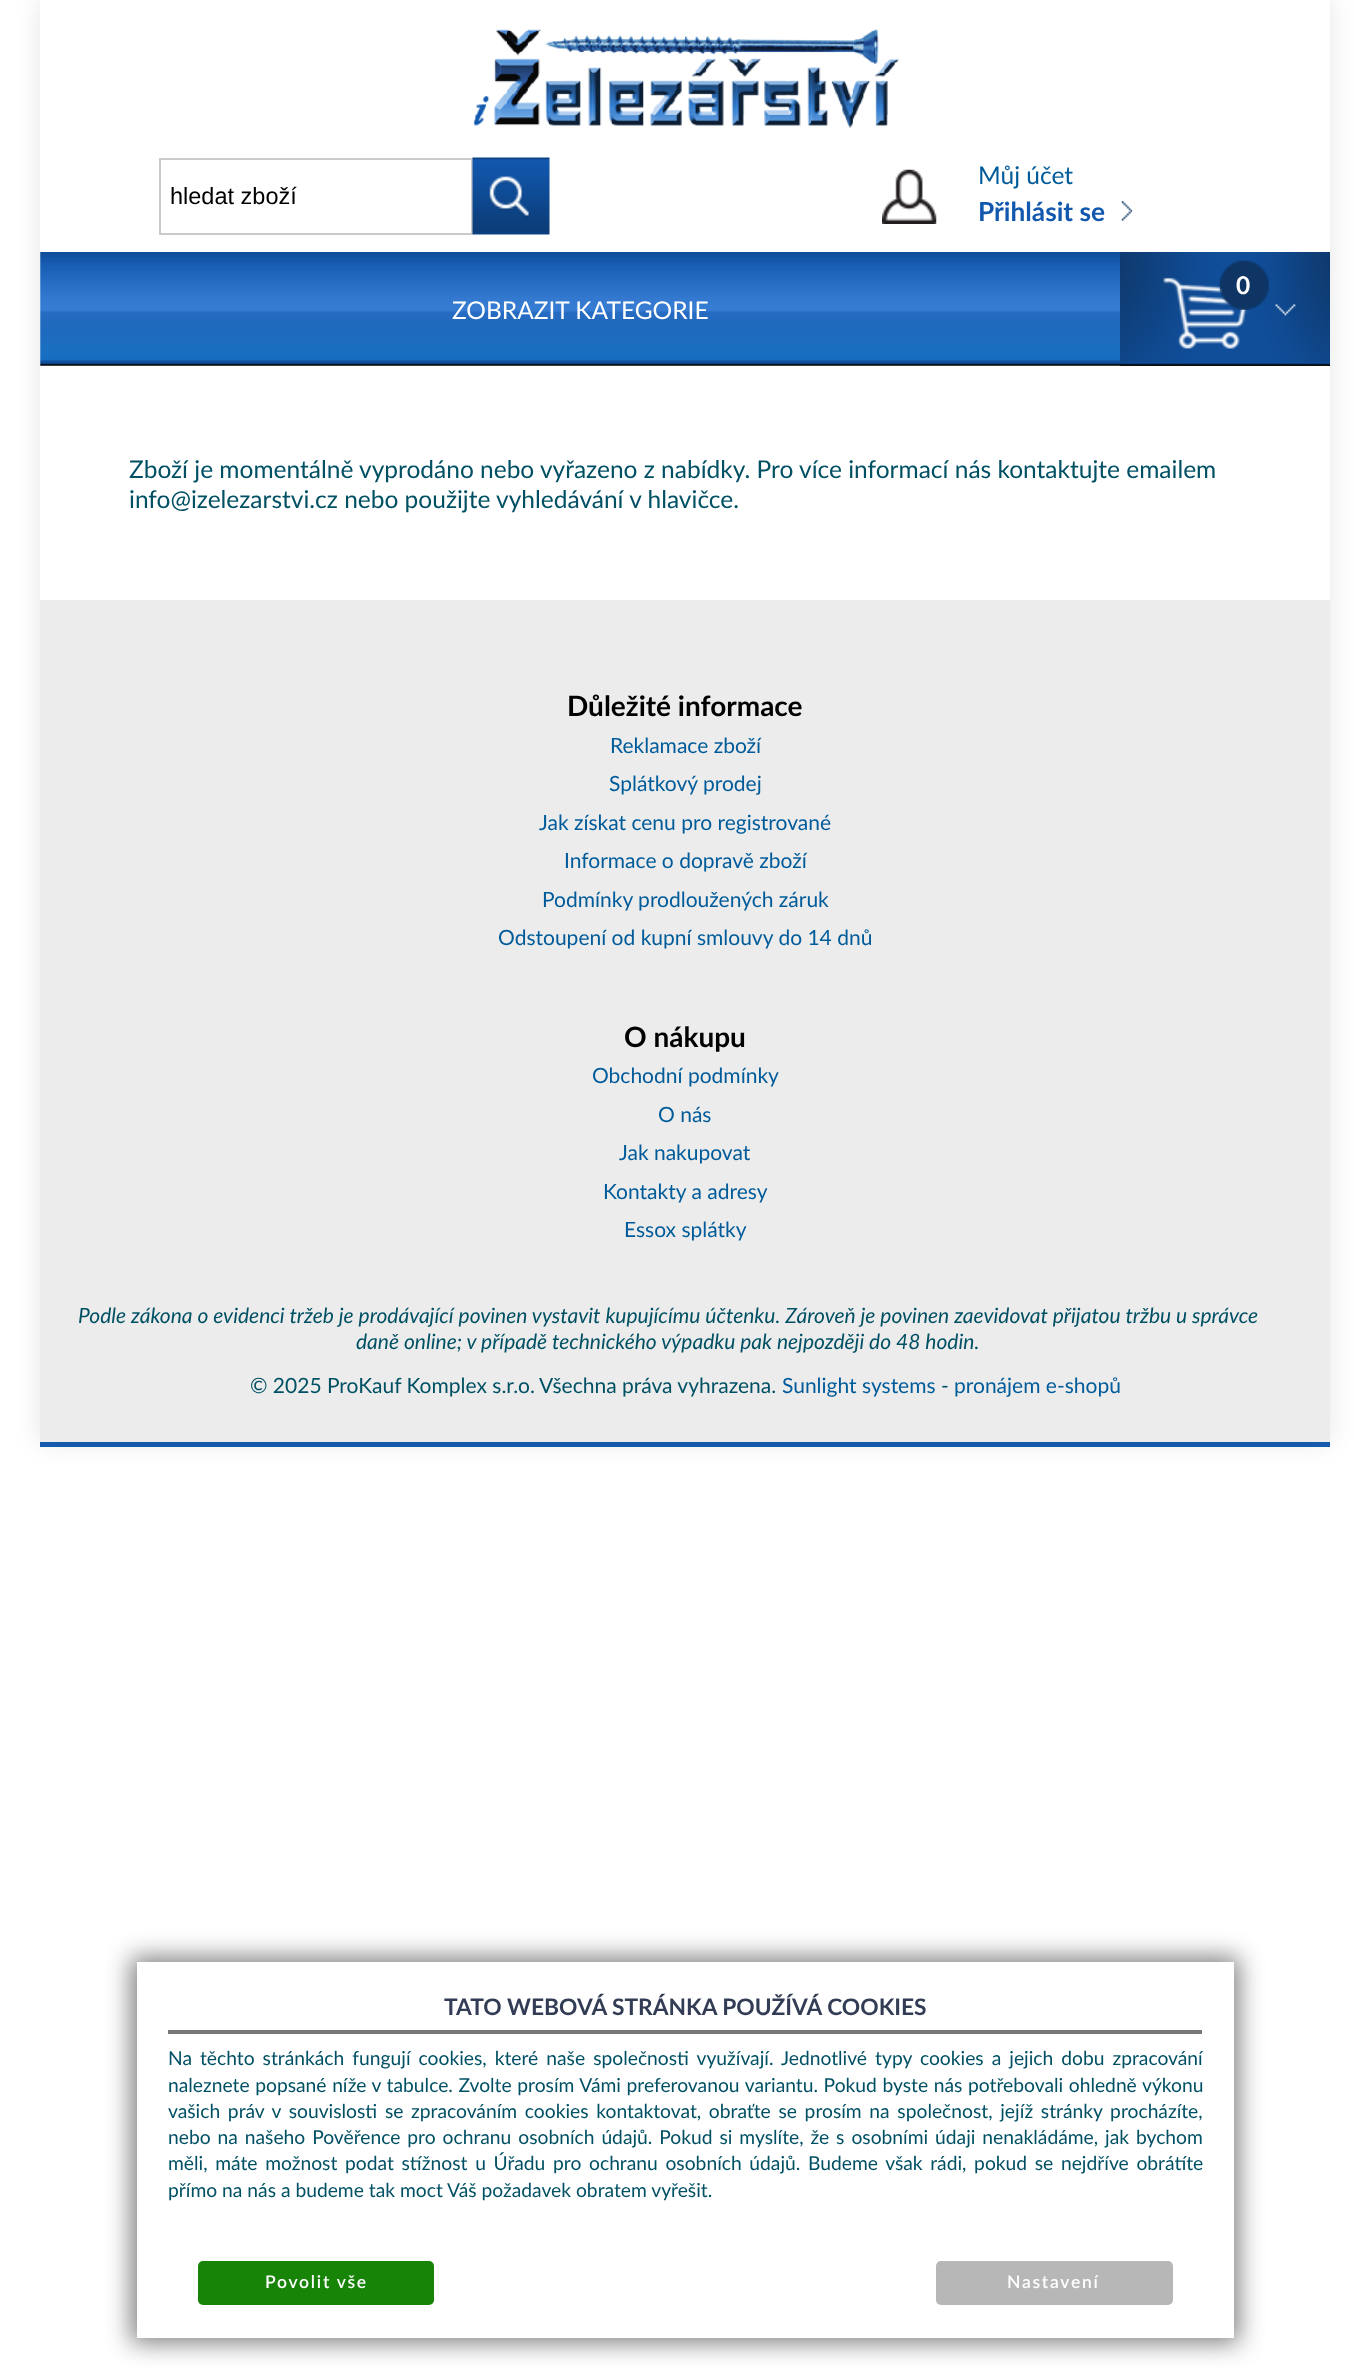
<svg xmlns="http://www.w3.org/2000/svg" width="1369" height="2373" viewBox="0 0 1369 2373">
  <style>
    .t1 { font: 23.5px Liberation Sans; fill: #000; }
    .t2 { font: 24.5px Lato; fill: #005b9a; }
    .t3 { font: bold 26.25px Lato; fill: #1258ae; }
    .t4 { font: bold 24.5px Lato; fill: #fff; }
    .t5 { font: 24.5px Lato; fill: #fff; }
    .t6 { font: 24.5px Lato; fill: #005064; }
    .t7 { font: bold 28px Lato; fill: #000; }
    .t8 { font: 21px Lato; fill: #005b9a; }
    .t9 { font: italic 21px Lato; fill: #005064; }
    .t10 { font: 21px Lato; fill: #005064; }
    .t11 { font: bold 22.75px Lato; fill: #323d55; }
    .t12 { font: 19.25px Lato; fill: #005064; }
    .t13 { font: 600 17.5px Lato; letter-spacing: 1.75px; fill: #fff; }
  </style>
  <defs>
    <clipPath id="clip1"><path d="M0 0H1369V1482H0ZM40 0H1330V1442H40Z" clip-rule="evenodd"/></clipPath>
  </defs>
  <rect width="100%" height="100%" fill="#fff"/>
  <rect x="40" y="1442" width="1290" height="5" fill="#165db3"/>
  <g clip-path="url(#clip1)">
    <rect x="40" y="0" width="1290" height="1442" fill="#0000001a" filter="blur(13px)"/>
  </g>
  <image x="473" y="29" width="426" height="99" href="images/1.png"/>
  <rect x="160" y="159" width="312" height="75" fill="none" stroke="#cacaca" stroke-width="2"/>
  <text x="170" y="204" class="t1">hledat zboží</text>
  <image x="472" y="157" width="78" height="78" href="images/2.png"/>
  <image x="882" y="169" width="55" height="55" href="images/3.png"/>
  <text x="978" y="184" class="t2">Můj účet</text>
  <text x="978" y="221" class="t3">Přihlásit se</text>
  <image x="1121" y="201" width="12" height="20" href="images/4.png"/>
  <image x="40" y="252" width="1290" height="114" href="images/5.png"/>
  <image x="1120" y="252" width="210" height="114" href="images/6.png"/>
  <image x="1219" y="260" width="50" height="50" href="images/7.png"/>
  <text x="1236" y="294" class="t4">0</text>
  <text x="452" y="319" class="t5">ZOBRAZIT KATEGORIE</text>
  <text x="129" y="478" class="t6">Zboží je momentálně vyprodáno nebo vyřazeno z nabídky. Pro více informací nás kontaktujte emailem</text>
  <text x="129" y="508" class="t6">info@izelezarstvi.cz nebo použijte vyhledávání v hlavičce.</text>
  <rect x="40" y="600" width="1290" height="842" fill="#ececec"/>
  <text x="567" y="716" class="t7">Důležité informace</text>
  <text x="610" y="753" class="t8">Reklamace zboží</text>
  <text x="609" y="791" class="t8">Splátkový prodej</text>
  <text x="539" y="830" class="t8">Jak získat cenu pro registrované</text>
  <text x="564" y="868" class="t8">Informace o dopravě zboží</text>
  <text x="542" y="907" class="t8">Podmínky prodloužených záruk</text>
  <text x="498" y="945" class="t8">Odstoupení od kupní smlouvy do 14 dnů</text>
  <text x="624" y="1047" class="t7">O nákupu</text>
  <text x="592" y="1083" class="t8">Obchodní podmínky</text>
  <text x="658" y="1122" class="t8">O nás</text>
  <text x="619" y="1160" class="t8">Jak nakupovat</text>
  <text x="603" y="1199" class="t8">Kontakty a adresy</text>
  <text x="624" y="1237" class="t8">Essox splátky</text>
  <text x="78" y="1323" class="t9">Podle zákona o evidenci tržeb je prodávající povinen vystavit kupujícímu účtenku. Zároveň je povinen zaevidovat přijatou tržbu u správce</text>
  <text x="356" y="1349" class="t9">daně online; v případě technického výpadku pak nejpozději do 48 hodin.</text>
  <text x="250" y="1393" class="t10">© 2025 ProKauf Komplex s.r.o.</text>
  <text x="539" y="1393" class="t10">Všechna práva vyhrazena.</text>
  <text x="782" y="1393" class="t8">Sunlight systems</text>
  <text x="941" y="1393" class="t10">-</text>
  <text x="954" y="1393" class="t8">pronájem e-shopů</text>
  <rect x="131" y="1957" width="1108" height="386" fill="#00000080" filter="blur(12px)"/>
  <rect x="137" y="1962" width="1097" height="376" fill="#fff"/>
  <rect x="168" y="2030" width="1034" height="4" fill="#777"/>
  <text x="444" y="2015" class="t11">TATO WEBOVÁ STRÁNKA POUŽÍVÁ COOKIES</text>
  <text x="168" y="2065" word-spacing="3.1" class="t12">Na těchto stránkách fungují cookies, které naše společnosti využívají. Jednotlivé typy cookies a jejich dobu zpracování</text>
  <text x="168" y="2092" word-spacing="0.7" class="t12">naleznete popsané níže v tabulce. Zvolte prosím Vámi preferovanou variantu. Pokud byste nás potřebovali ohledně výkonu</text>
  <text x="168" y="2118" word-spacing="2.75" class="t12">vašich práv v souvislosti se zpracováním cookies kontaktovat, obraťte se prosím na společnost, jejíž stránky procházíte,</text>
  <text x="168" y="2144" word-spacing="2" class="t12">nebo na našeho Pověřence pro ochranu osobních údajů. Pokud si myslíte, že s osobními údaji nenakládáme, jak bychom</text>
  <text x="168" y="2170" word-spacing="2.75" class="t12">měli, máte možnost podat stížnost u Úřadu pro ochranu osobních údajů. Budeme však rádi, pokud se nejdříve obrátíte</text>
  <text x="168" y="2197" class="t12">přímo na nás a budeme tak moct Váš požadavek obratem vyřešit.</text>
  <rect x="198" y="2261" width="236" height="44" rx="5" fill="#178408"/>
  <text x="265" y="2288" class="t13">Povolit vše</text>
  <rect x="936" y="2261" width="237" height="44" rx="5" fill="#b7b7b7"/>
  <text x="1007" y="2288" class="t13">Nastavení</text>
</svg>
